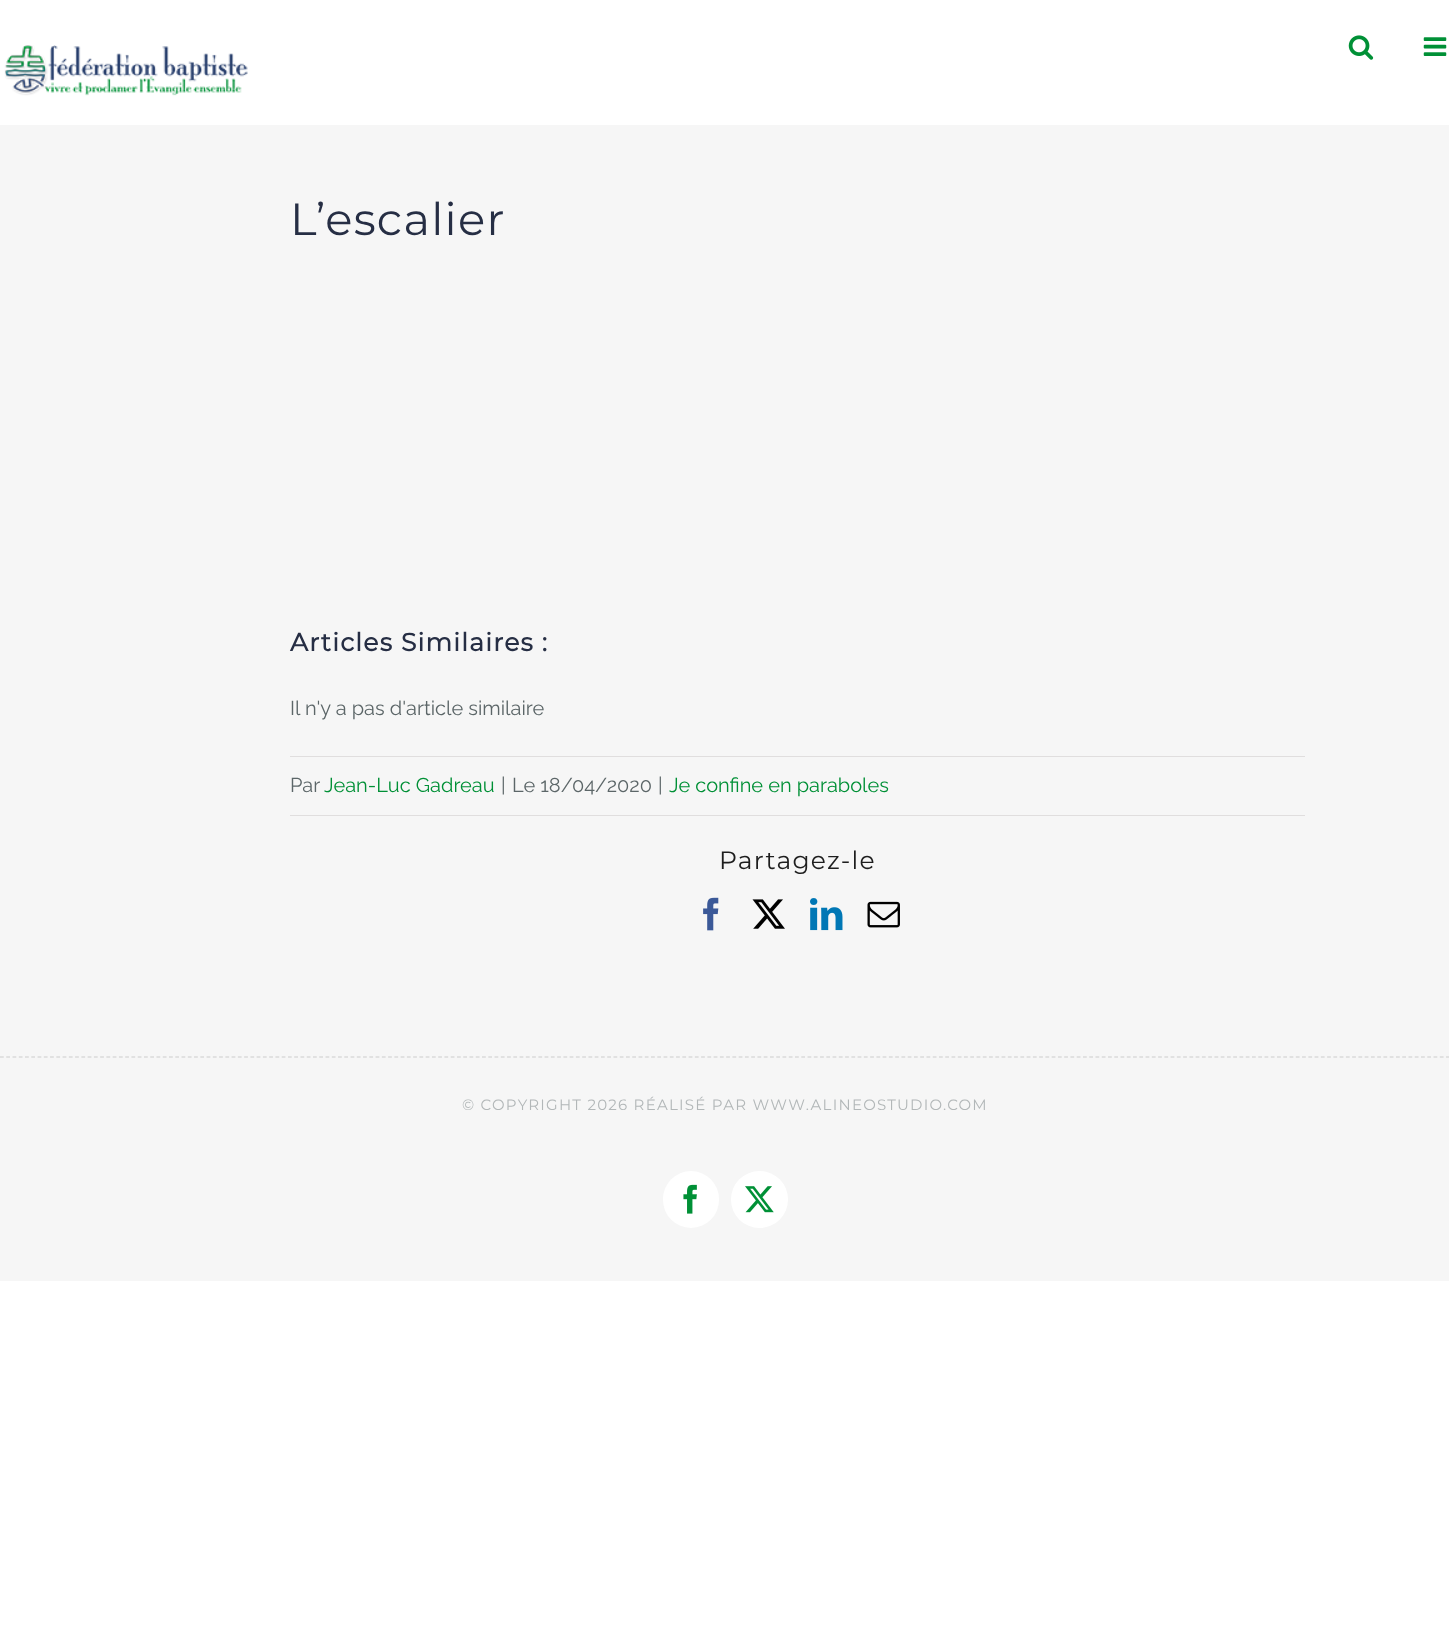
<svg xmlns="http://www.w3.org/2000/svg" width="1449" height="1647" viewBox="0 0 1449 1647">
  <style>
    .t1 { font: 100 45px Montserrat; letter-spacing: 1.25px; fill: #262e44; }
    .t2 { font: bold 25px Montserrat; letter-spacing: 1.25px; fill: #262e44; }
    .t3 { font: 20px Raleway; fill: #5c6668; }
    .t4 { font: 20px Raleway; fill: #009036; }
    .t5 { font: 100 25px Montserrat; letter-spacing: 1.25px; fill: #1e1e1e; }
    .t6 { font: 100 15px Montserrat; letter-spacing: 1.25px; fill: #b2b7b8; }
  </style>
  <rect width="100%" height="100%" fill="#fff"/>
  <rect x="0" y="125" width="1449" height="1156" fill="#f6f6f6"/>
  <image x="4" y="45" width="244" height="51" href="images/1.png"/>
  <image x="1348" y="35" width="26" height="25" href="images/2.png"/>
  <image x="1423" y="37" width="24" height="19" href="images/3.png"/>
  <text x="290" y="235" class="t1">L’escalier</text>
  <text x="290" y="651" class="t2">Articles Similaires :</text>
  <text x="290" y="715" class="t3">Il n'y a pas d'article similaire</text>
  <rect x="290" y="756" width="1015" height="1" fill="#e0dede"/>
  <rect x="290" y="815" width="1015" height="1" fill="#e0dede"/>
  <text x="290" y="792" class="t3">Par</text>
  <text x="324" y="792" class="t4">Jean-Luc Gadreau</text>
  <text x="501" y="792" class="t3">|</text>
  <text x="512" y="792" class="t3">Le 18/04/2020</text>
  <text x="658" y="792" class="t3">|</text>
  <text x="669" y="792" class="t4">Je confine en paraboles</text>
  <text x="719" y="869" class="t5">Partagez-le</text>
  <image x="703" y="897" width="16" height="34" href="images/4.png"/>
  <image x="752" y="899" width="33" height="30" href="images/5.png"/>
  <image x="810" y="898" width="33" height="33" href="images/6.png"/>
  <image x="867" y="901" width="33" height="27" href="images/7.png"/>
  <path d="M0 1057H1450" fill="none" stroke="#ccc" stroke-width="1.2" stroke-dasharray="3.75 2.51"/>
  <text x="462" y="1110" class="t6">© COPYRIGHT 2026 RÉALISÉ PAR WWW.ALINEOSTUDIO.COM</text>
  <rect x="663" y="1171" width="56" height="57" rx="28" fill="#fff"/>
  <image x="683" y="1184" width="14" height="30" href="images/8.png"/>
  <circle cx="759.5" cy="1199.5" r="28.5" fill="#fff"/>
  <image x="745" y="1186" width="29" height="27" href="images/9.png"/>
</svg>
